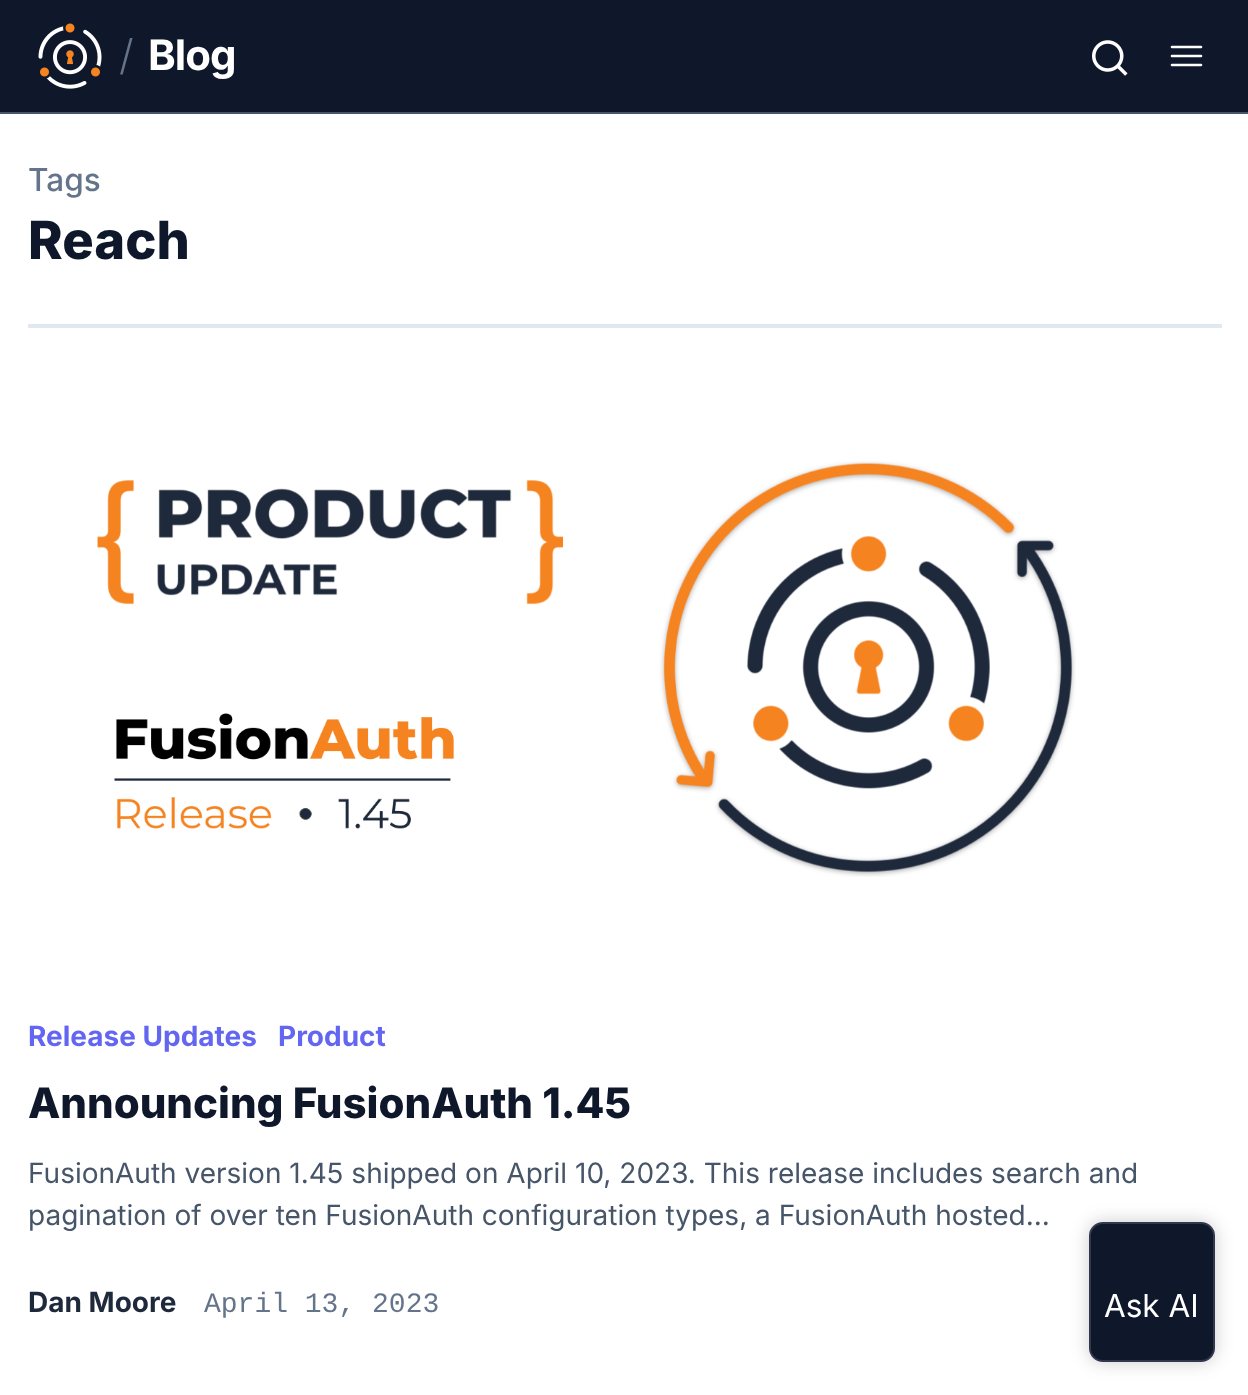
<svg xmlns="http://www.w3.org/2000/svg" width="1248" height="1395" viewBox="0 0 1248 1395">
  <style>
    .t1 { font: 300 42px Inter; fill: #64748b; }
    .t2 { font: bold 42px Inter; letter-spacing: -1px; fill: #fff; }
    .t3 { font: 500 31.5px Inter; fill: #64748b; }
    .t4 { font: 800 52.5px Inter; fill: #0f172a; }
    .t5 { font: bold 28px Inter; fill: #6366f1; }
    .t6 { font: 800 42px Inter; fill: #0f172a; }
    .t7 { font: 28px Inter; fill: #475569; }
    .t8 { font: bold 28px Inter; fill: #1e293b; }
    .t9 { font: 28px Liberation Mono; fill: #64748b; }
    .t10 { font: 31.5px Inter; fill: #fff; }
  </style>
  <rect width="100%" height="100%" fill="#fff"/>
  <rect x="0" y="0" width="1248" height="112" fill="#0f172a"/>
  <rect x="0" y="112" width="1248" height="2" fill="#475569"/>
  <image x="38" y="23" width="64" height="66" href="images/1.png"/>
  <text x="119" y="70" class="t1">/</text>
  <text x="148" y="70" class="t2">Blog</text>
  <image x="1092" y="40" width="36" height="36" href="images/2.png"/>
  <path d="M1172 47H1201M1172 56H1201M1172 65H1201" fill="none" stroke="#fff" stroke-width="2.6" stroke-linecap="round" stroke-linejoin="round"/>
  <text x="28" y="191" class="t3">Tags</text>
  <text x="28" y="259" class="t4">Reach</text>
  <rect x="28" y="324" width="1194" height="4" fill="#e2e8f0"/>
  <image x="97" y="461" width="979" height="416" href="images/3.png"/>
  <text x="28" y="1046" class="t5">Release Updates</text>
  <text x="278" y="1046" class="t5">Product</text>
  <text x="28" y="1118" class="t6">Announcing FusionAuth 1.45</text>
  <text x="28" y="1183" class="t7">FusionAuth version 1.45 shipped on April 10, 2023. This release includes search and</text>
  <text x="28" y="1225" class="t7">pagination of over ten FusionAuth configuration types, a FusionAuth hosted...</text>
  <text x="28" y="1312" class="t8">Dan Moore</text>
  <text x="204" y="1312" class="t9">April 13, 2023</text>
  <rect x="1089" y="1222" width="126" height="140" rx="14" fill="#00000033" filter="blur(9px)"/>
  <rect x="1090" y="1223" width="124" height="138" rx="13" fill="#0f172a" stroke="#31374d" stroke-width="2"/>
  <text x="1104" y="1317" class="t10">Ask AI</text>
</svg>
